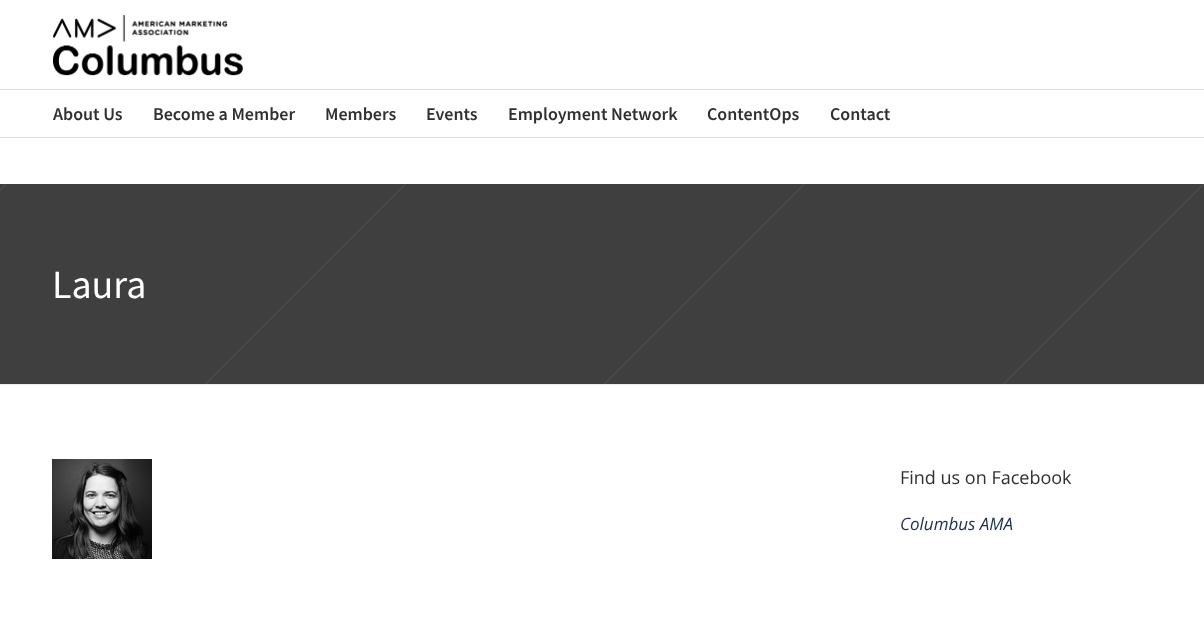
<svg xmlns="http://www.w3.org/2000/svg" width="1204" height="623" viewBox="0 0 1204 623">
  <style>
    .t1 { font: 600 18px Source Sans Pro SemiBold; fill: #303030; }
    .t2 { font: 40px Source Sans Pro; fill: #fff; }
    .t3 { font: 18px Open Sans; fill: #303030; }
    .t4 { font: italic 17px Open Sans; fill: #1f304f; }
  </style>
  <rect width="100%" height="100%" fill="#fff"/>
  <rect x="0" y="89" width="1204" height="1" fill="#dee0e0"/>
  <image x="53" y="14" width="190" height="62" href="images/1.png"/>
  <rect x="0" y="137" width="1204" height="1" fill="#dee0e0"/>
  <text x="53" y="120" class="t1">About Us</text>
  <text x="153" y="120" class="t1">Become a Member</text>
  <text x="325" y="120" class="t1">Members</text>
  <text x="426" y="120" class="t1">Events</text>
  <text x="508" y="120" class="t1">Employment Network</text>
  <text x="707" y="120" class="t1">ContentOps</text>
  <text x="830" y="120" class="t1">Contact</text>
  <image x="0" y="184" width="1204" height="200" href="images/2.png"/>
  <rect x="0" y="384" width="1204" height="1" fill="#ebebeb"/>
  <text x="52" y="298" class="t2">Laura</text>
  <image x="52" y="459" width="100" height="100" href="images/3.png"/>
  <text x="900" y="484" class="t3">Find us on Facebook</text>
  <text x="900" y="530" class="t4">Columbus AMA</text>
</svg>
